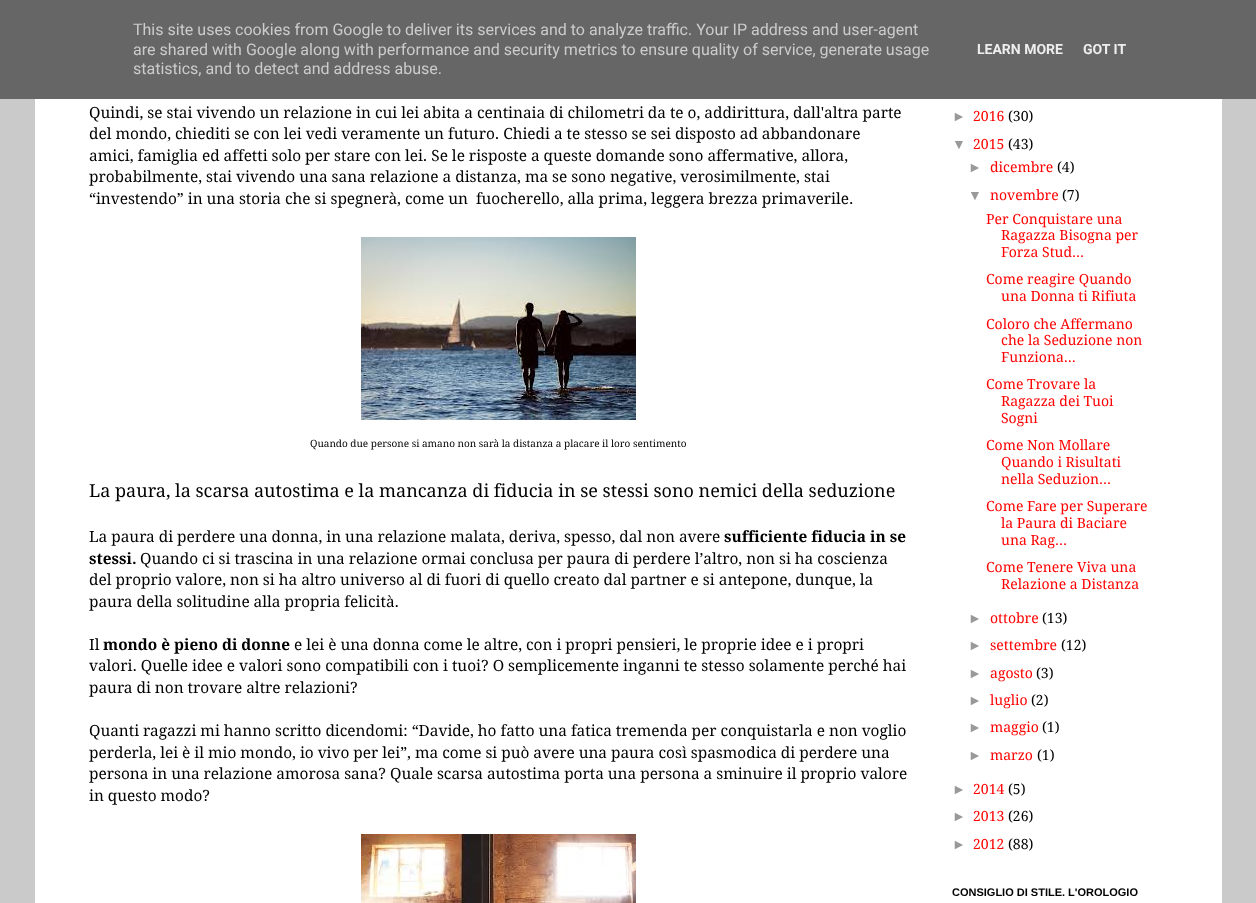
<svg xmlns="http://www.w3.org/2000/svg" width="1256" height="903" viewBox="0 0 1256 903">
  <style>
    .t1 { font: 16px Roboto; fill: #ccc; }
    .t2 { font: bold 14px Roboto; fill: #eee; }
    .t3 { font: 15.4px Droid Serif; fill: #000; }
    .t4 { font: 10px Droid Serif; fill: #000; }
    .t5 { font: 18px Droid Serif; fill: #000; }
    .t6 { font: bold 15.4px Droid Serif; fill: #000; }
    .t7 { font: 14px Liberation Sans; fill: #999; }
    .t8 { font: 14px Droid Serif; fill: #f00; }
    .t9 { font: 14px Droid Serif; fill: #000; }
    .t10 { font: bold 11px Liberation Sans; fill: #000; }
  </style>
  <rect width="100%" height="100%" fill="#cacaca"/>
  <rect x="0" y="0" width="1256" height="99" fill="#666"/>
  <text x="133" y="35" class="t1">This site uses cookies from Google to deliver its services and to analyze traffic. Your IP address and user-agent</text>
  <text x="133" y="55" class="t1">are shared with Google along with performance and security metrics to ensure quality of service, generate usage</text>
  <text x="133" y="74" class="t1">statistics, and to detect and address abuse.</text>
  <text x="977" y="54" class="t2">LEARN MORE</text>
  <text x="1083" y="54" class="t2">GOT IT</text>
  <rect x="35" y="99" width="1187" height="804" fill="#fff"/>
  <text x="89" y="118" class="t3">Quindi, se stai vivendo un relazione in cui lei abita a centinaia di chilometri da te o, addirittura, dall'altra parte</text>
  <text x="89" y="139" class="t3">del mondo, chiediti se con lei vedi veramente un futuro. Chiedi a te stesso se sei disposto ad abbandonare</text>
  <text x="89" y="161" class="t3">amici, famiglia ed affetti solo per stare con lei. Se le risposte a queste domande sono affermative, allora,</text>
  <text x="89" y="182" class="t3">probabilmente, stai vivendo una sana relazione a distanza, ma se sono negative, verosimilmente, stai</text>
  <text x="89" y="204" class="t3" xml:space="preserve">“investendo” in una storia che si spegnerà, come un  fuocherello, alla prima, leggera brezza primaverile.</text>
  <image x="361" y="237" width="275" height="183" href="images/1.png"/>
  <text x="310" y="447" class="t4">Quando due persone si amano non sarà la distanza a placare il loro sentimento</text>
  <text x="89" y="497" class="t5">La paura, la scarsa autostima e la mancanza di fiducia in se stessi sono nemici della seduzione</text>
  <text x="89" y="542" class="t3">La paura di perdere una donna, in una relazione malata, deriva, spesso, dal non avere</text>
  <text x="724" y="542" class="t6">sufficiente fiducia in se</text>
  <text x="89" y="564" class="t6">stessi.</text>
  <text x="140" y="564" class="t3">Quando ci si trascina in una relazione ormai conclusa per paura di perdere l’altro, non si ha coscienza</text>
  <text x="89" y="585" class="t3">del proprio valore, non si ha altro universo al di fuori di quello creato dal partner e si antepone, dunque, la</text>
  <text x="89" y="607" class="t3">paura della solitudine alla propria felicità.</text>
  <text x="89" y="650" class="t3">Il</text>
  <text x="103" y="650" class="t6">mondo è pieno di donne</text>
  <text x="294" y="650" class="t3">e lei è una donna come le altre, con i propri pensieri, le proprie idee e i propri</text>
  <text x="89" y="671" class="t3">valori. Quelle idee e valori sono compatibili con i tuoi? O semplicemente inganni te stesso solamente perché hai</text>
  <text x="89" y="693" class="t3">paura di non trovare altre relazioni?</text>
  <text x="89" y="736" class="t3">Quanti ragazzi mi hanno scritto dicendomi: “Davide, ho fatto una fatica tremenda per conquistarla e non voglio</text>
  <text x="89" y="758" class="t3">perderla, lei è il mio mondo, io vivo per lei”, ma come si può avere una paura così spasmodica di perdere una</text>
  <text x="89" y="779" class="t3">persona in una relazione amorosa sana? Quale scarsa autostima porta una persona a sminuire il proprio valore</text>
  <text x="89" y="801" class="t3">in questo modo?</text>
  <image x="361" y="834" width="275" height="69" href="images/2.png"/>
  <text x="952" y="121" class="t7">►</text>
  <text x="973" y="121" class="t8">2016</text>
  <text x="1008" y="121" class="t9">(30)</text>
  <text x="952" y="149" class="t7">▼</text>
  <text x="973" y="149" class="t8">2015</text>
  <text x="1008" y="149" class="t9">(43)</text>
  <text x="968" y="172" class="t7">►</text>
  <text x="990" y="172" class="t8">dicembre</text>
  <text x="1057" y="172" class="t9">(4)</text>
  <text x="968" y="200" class="t7">▼</text>
  <text x="990" y="200" class="t8">novembre</text>
  <text x="1062" y="200" class="t9">(7)</text>
  <text x="986" y="224" class="t8">Per Conquistare una</text>
  <text x="1001" y="240" class="t8">Ragazza Bisogna per</text>
  <text x="1001" y="257" class="t8">Forza Stud...</text>
  <text x="986" y="284" class="t8">Come reagire Quando</text>
  <text x="1001" y="301" class="t8">una Donna ti Rifiuta</text>
  <text x="986" y="329" class="t8">Coloro che Affermano</text>
  <text x="1001" y="345" class="t8">che la Seduzione non</text>
  <text x="1001" y="362" class="t8">Funziona...</text>
  <text x="986" y="389" class="t8">Come Trovare la</text>
  <text x="1001" y="406" class="t8">Ragazza dei Tuoi</text>
  <text x="1001" y="423" class="t8">Sogni</text>
  <text x="986" y="450" class="t8">Come Non Mollare</text>
  <text x="1001" y="467" class="t8">Quando i Risultati</text>
  <text x="1001" y="484" class="t8">nella Seduzion...</text>
  <text x="986" y="511" class="t8">Come Fare per Superare</text>
  <text x="1001" y="528" class="t8">la Paura di Baciare</text>
  <text x="1001" y="545" class="t8">una Rag...</text>
  <text x="986" y="572" class="t8">Come Tenere Viva una</text>
  <text x="1001" y="589" class="t8">Relazione a Distanza</text>
  <text x="968" y="623" class="t7">►</text>
  <text x="990" y="623" class="t8">ottobre</text>
  <text x="1042" y="623" class="t9">(13)</text>
  <text x="968" y="650" class="t7">►</text>
  <text x="990" y="650" class="t8">settembre</text>
  <text x="1061" y="650" class="t9">(12)</text>
  <text x="968" y="678" class="t7">►</text>
  <text x="990" y="678" class="t8">agosto</text>
  <text x="1036" y="678" class="t9">(3)</text>
  <text x="968" y="705" class="t7">►</text>
  <text x="990" y="705" class="t8">luglio</text>
  <text x="1031" y="705" class="t9">(2)</text>
  <text x="968" y="732" class="t7">►</text>
  <text x="990" y="732" class="t8">maggio</text>
  <text x="1042" y="732" class="t9">(1)</text>
  <text x="968" y="760" class="t7">►</text>
  <text x="990" y="760" class="t8">marzo</text>
  <text x="1037" y="760" class="t9">(1)</text>
  <text x="952" y="794" class="t7">►</text>
  <text x="973" y="794" class="t8">2014</text>
  <text x="1008" y="794" class="t9">(5)</text>
  <text x="952" y="821" class="t7">►</text>
  <text x="973" y="821" class="t8">2013</text>
  <text x="1008" y="821" class="t9">(26)</text>
  <text x="952" y="849" class="t7">►</text>
  <text x="973" y="849" class="t8">2012</text>
  <text x="1008" y="849" class="t9">(88)</text>
  <text x="952" y="896" class="t10">CONSIGLIO DI STILE. L'OROLOGIO</text>
</svg>
